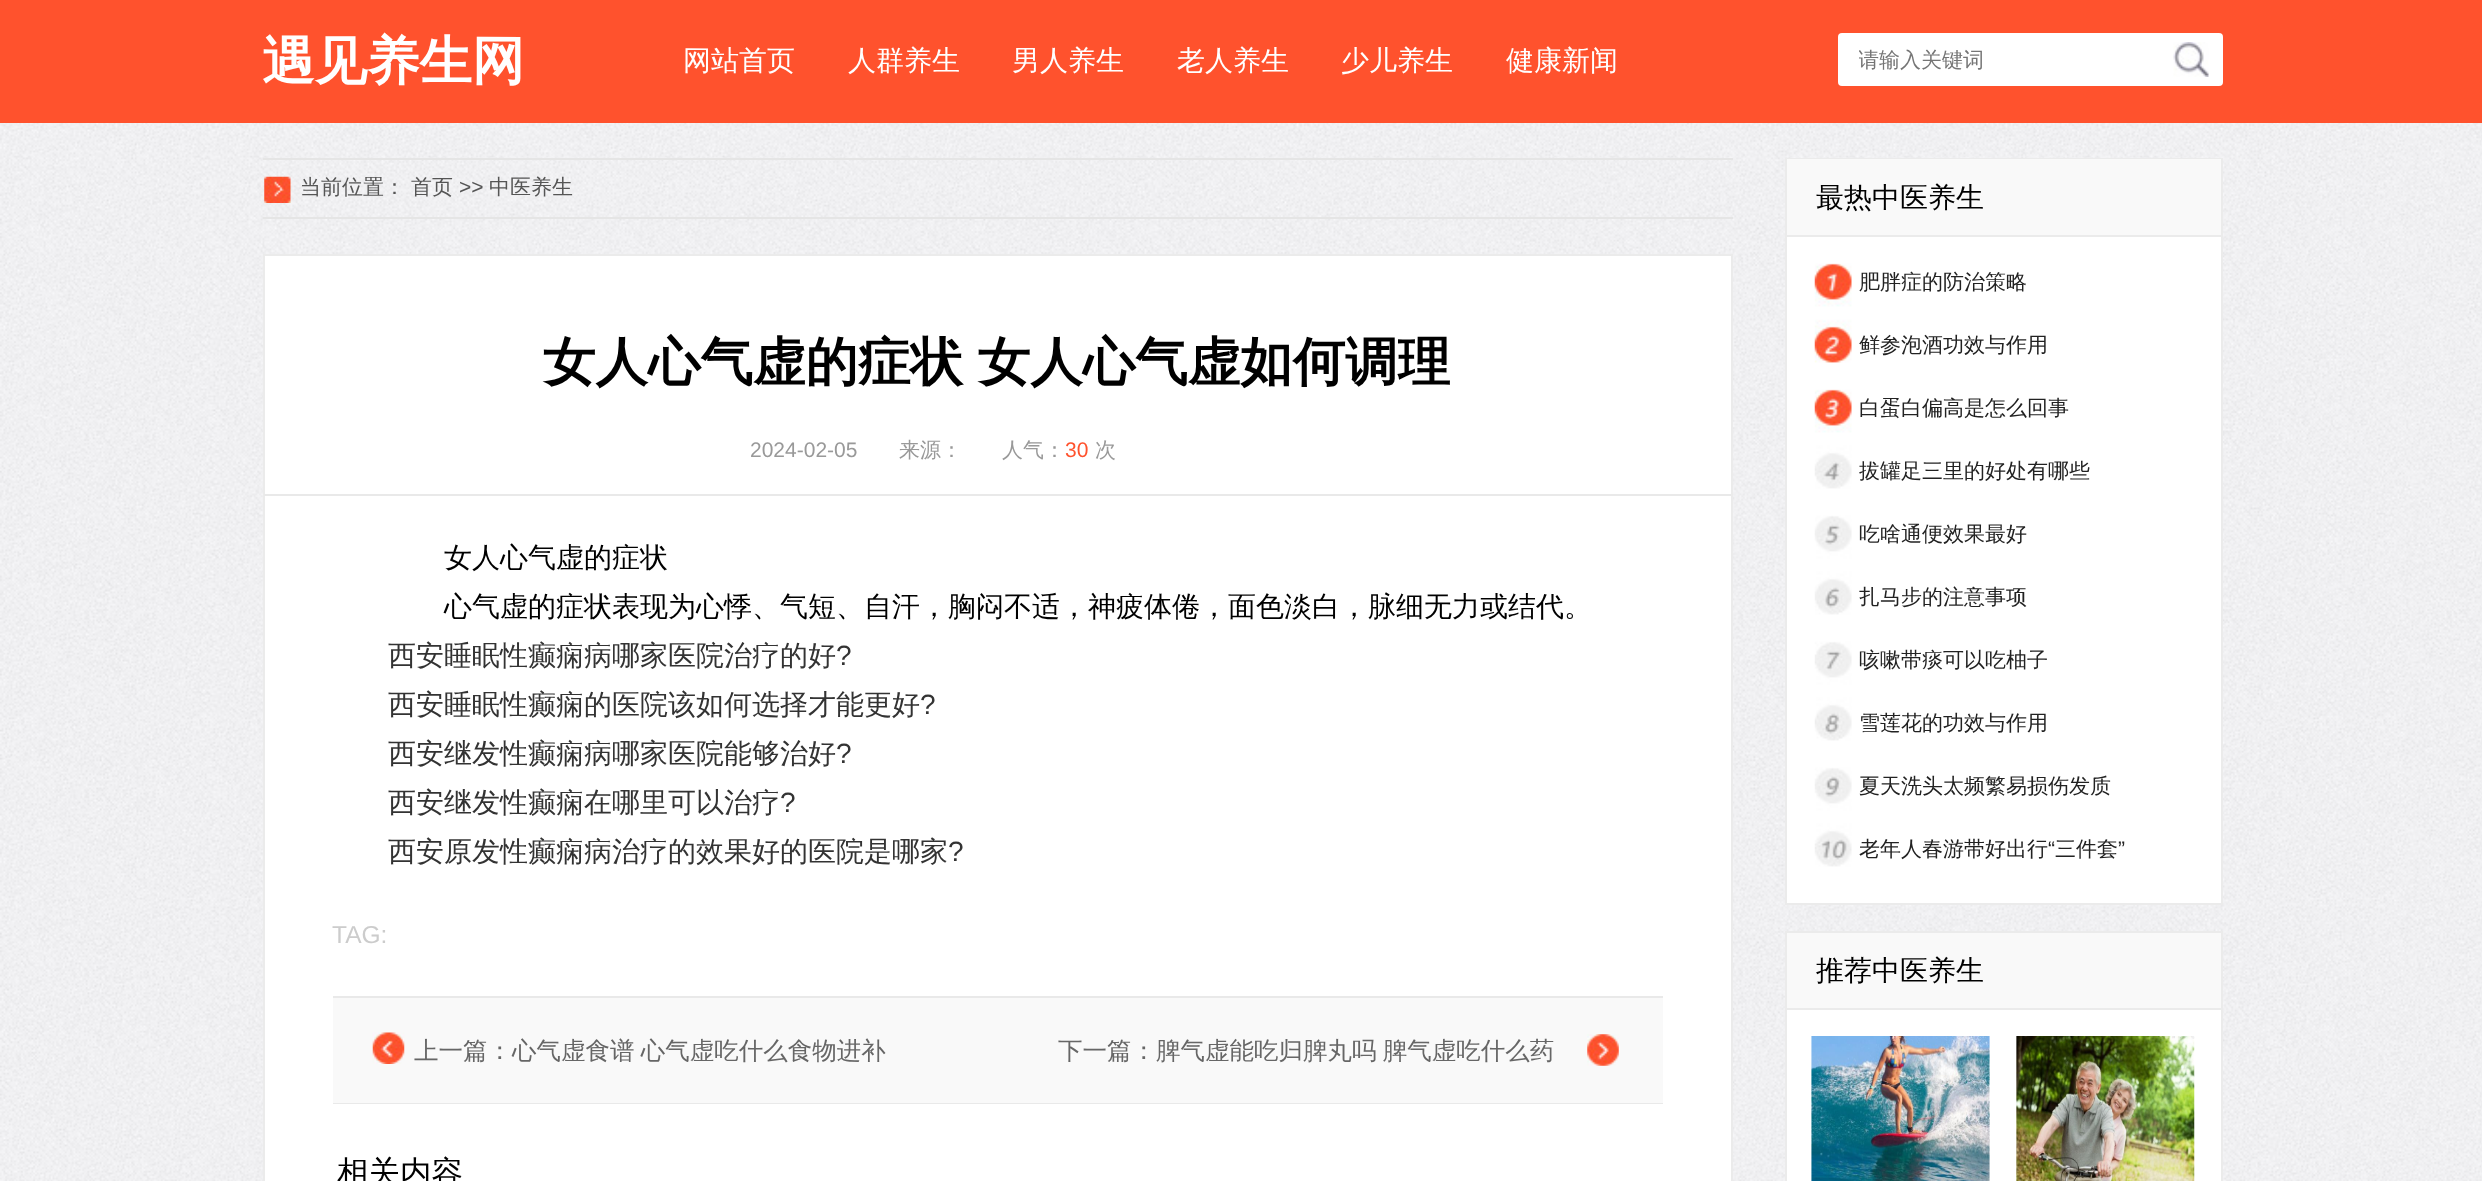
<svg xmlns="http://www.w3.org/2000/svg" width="2482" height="1181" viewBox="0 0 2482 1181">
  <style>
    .t1 { font: bold 52.5px WenQuanYi Zen Hei; fill: #fff; }
    .t2 { font: 500 28px WenQuanYi Zen Hei; fill: #fff; }
    .t3 { font: 500 21px WenQuanYi Zen Hei; fill: #757575; }
    .t4 { font: 500 21px WenQuanYi Zen Hei; fill: #555; }
    .t5 { font: 21px Liberation Sans; fill: #555; }
    .t6 { font: bold 52.5px WenQuanYi Zen Hei; fill: #000; }
    .t7 { font: 21px Liberation Sans; fill: #999; }
    .t8 { font: 500 21px WenQuanYi Zen Hei; fill: #999; }
    .t9 { font: 21px Liberation Sans; fill: #ff522d; }
    .t10 { font: 500 28px WenQuanYi Zen Hei; fill: #000; }
    .t11 { font: 500 28px WenQuanYi Zen Hei; fill: #333; }
    .t12 { font: 28px Liberation Sans; fill: #333; }
    .t13 { font: 24.5px Liberation Sans; fill: #ccc; }
    .t14 { font: 500 24.5px WenQuanYi Zen Hei; fill: #666; }
    .t15 { font: 500 31.5px WenQuanYi Zen Hei; fill: #000; }
    .t16 { font: 500 21px WenQuanYi Zen Hei; fill: #222; }
    .t17 { font: 21px Liberation Sans; fill: #222; }
  </style>
  <defs>
    <clipPath id="clip1"><rect x="1859" y="46" width="315" height="29"/></clipPath>
  </defs>
  <rect width="100%" height="100%" fill="#fff"/>
  <image x="0" y="123" width="2482" height="1058" href="images/1.png"/>
  <rect x="0" y="0" width="2482" height="123" fill="#ff522d"/>
  <text x="262" y="79" class="t1">遇见养生网</text>
  <text x="683" y="70" class="t2">网站首页</text>
  <text x="848" y="70" class="t2">人群养生</text>
  <text x="1012" y="70" class="t2">男人养生</text>
  <text x="1177" y="70" class="t2">老人养生</text>
  <text x="1341" y="70" class="t2">少儿养生</text>
  <text x="1506" y="70" class="t2">健康新闻</text>
  <rect x="1838" y="33" width="385" height="53" rx="4" fill="#fff"/>
  <g clip-path="url(#clip1)">
    <text x="1858" y="67" class="t3">请输入关键词</text>
  </g>
  <image x="2173" y="42" width="36" height="35" href="images/2.png"/>
  <image x="264" y="176" width="27" height="27" href="images/3.png"/>
  <rect x="263" y="158" width="1470" height="2" fill="#e5e5e5"/>
  <rect x="263" y="217" width="1470" height="2" fill="#e5e5e5"/>
  <text x="300" y="194" class="t4">当前位置：</text>
  <text x="411" y="194" class="t4">首页</text>
  <text x="459" y="194" class="t5">&gt;&gt;</text>
  <text x="489" y="194" class="t4">中医养生</text>
  <rect x="264" y="255" width="1468" height="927" fill="#fff" stroke="#ebebeb" stroke-width="2"/>
  <rect x="264" y="494" width="1467" height="2" fill="#e9e9e9"/>
  <text x="543" y="380" word-spacing="-1" class="t6">女人心气虚的症状 女人心气虚如何调理</text>
  <text x="750" y="457" class="t7">2024-02-05</text>
  <text x="899" y="457" class="t8">来源：</text>
  <text x="1002" y="457" class="t8">人气：</text>
  <text x="1065" y="457" class="t9">30</text>
  <text x="1095" y="457" class="t8">次</text>
  <text x="444" y="567" class="t10">女人心气虚的症状</text>
  <text x="444" y="616" class="t10">心气虚的症状表现为心悸、气短、自汗，胸闷不适，神疲体倦，面色淡白，脉细无力或结代。</text>
  <text x="388" y="665" class="t11">西安睡眠性癫痫病哪家医院治疗的好</text>
  <text x="836" y="665" class="t12">?</text>
  <text x="388" y="714" class="t11">西安睡眠性癫痫的医院该如何选择才能更好</text>
  <text x="920" y="714" class="t12">?</text>
  <text x="388" y="763" class="t11">西安继发性癫痫病哪家医院能够治好</text>
  <text x="836" y="763" class="t12">?</text>
  <text x="388" y="812" class="t11">西安继发性癫痫在哪里可以治疗</text>
  <text x="780" y="812" class="t12">?</text>
  <text x="388" y="861" class="t11">西安原发性癫痫病治疗的效果好的医院是哪家</text>
  <text x="948" y="861" class="t12">?</text>
  <text x="332" y="943" class="t13">TAG:</text>
  <rect x="333" y="998" width="1330" height="105" fill="#f9f9f9"/>
  <rect x="333" y="996" width="1330" height="2" fill="#e9e9e9"/>
  <rect x="333" y="1103" width="1330" height="1" fill="#e9e9e9"/>
  <image x="372" y="1032" width="33" height="32" href="images/4.png"/>
  <text x="414" y="1059" class="t14">上一篇：</text>
  <text x="512" y="1059" word-spacing="-1" class="t14">心气虚食谱 心气虚吃什么食物进补</text>
  <image x="1587" y="1034" width="32" height="32" href="images/5.png"/>
  <text x="1058" y="1059" class="t14">下一篇：</text>
  <text x="1156" y="1059" word-spacing="-1" class="t14">脾气虚能吃归脾丸吗 脾气虚吃什么药</text>
  <text x="337" y="1183" class="t15">相关内容</text>
  <rect x="1787" y="237" width="434" height="666" fill="#fff"/>
  <rect x="1786" y="159" width="436" height="745" fill="none" stroke="#ebebeb" stroke-width="2"/>
  <rect x="1787" y="159" width="434" height="76" fill="#f9f9f9"/>
  <rect x="1787" y="235" width="434" height="2" fill="#ebebeb"/>
  <text x="1816" y="207" class="t10">最热中医养生</text>
  <image x="1814" y="263" width="38" height="604" href="images/6.png"/>
  <text x="1859" y="289" class="t16">肥胖症的防治策略</text>
  <text x="1859" y="352" class="t16">鲜参泡酒功效与作用</text>
  <text x="1859" y="415" class="t16">白蛋白偏高是怎么回事</text>
  <text x="1859" y="478" class="t16">拔罐足三里的好处有哪些</text>
  <text x="1859" y="541" class="t16">吃啥通便效果最好</text>
  <text x="1859" y="604" class="t16">扎马步的注意事项</text>
  <text x="1859" y="667" class="t16">咳嗽带痰可以吃柚子</text>
  <text x="1859" y="730" class="t16">雪莲花的功效与作用</text>
  <text x="1859" y="793" class="t16">夏天洗头太频繁易损伤发质</text>
  <text x="1859" y="856" class="t16">老年人春游带好出行</text>
  <text x="2048" y="856" class="t17">“</text>
  <text x="2055" y="856" class="t16">三件套</text>
  <text x="2118" y="856" class="t17">”</text>
  <rect x="1787" y="1010" width="434" height="171" fill="#fff"/>
  <rect x="1786" y="932" width="436" height="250" fill="none" stroke="#ebebeb" stroke-width="2"/>
  <rect x="1787" y="933" width="434" height="75" fill="#f9f9f9"/>
  <rect x="1787" y="1008" width="434" height="2" fill="#ebebeb"/>
  <text x="1816" y="980" class="t10">推荐中医养生</text>
  <image x="1811" y="1036" width="179" height="145" href="images/7.png"/>
  <image x="2016" y="1036" width="179" height="145" href="images/8.png"/>
</svg>
